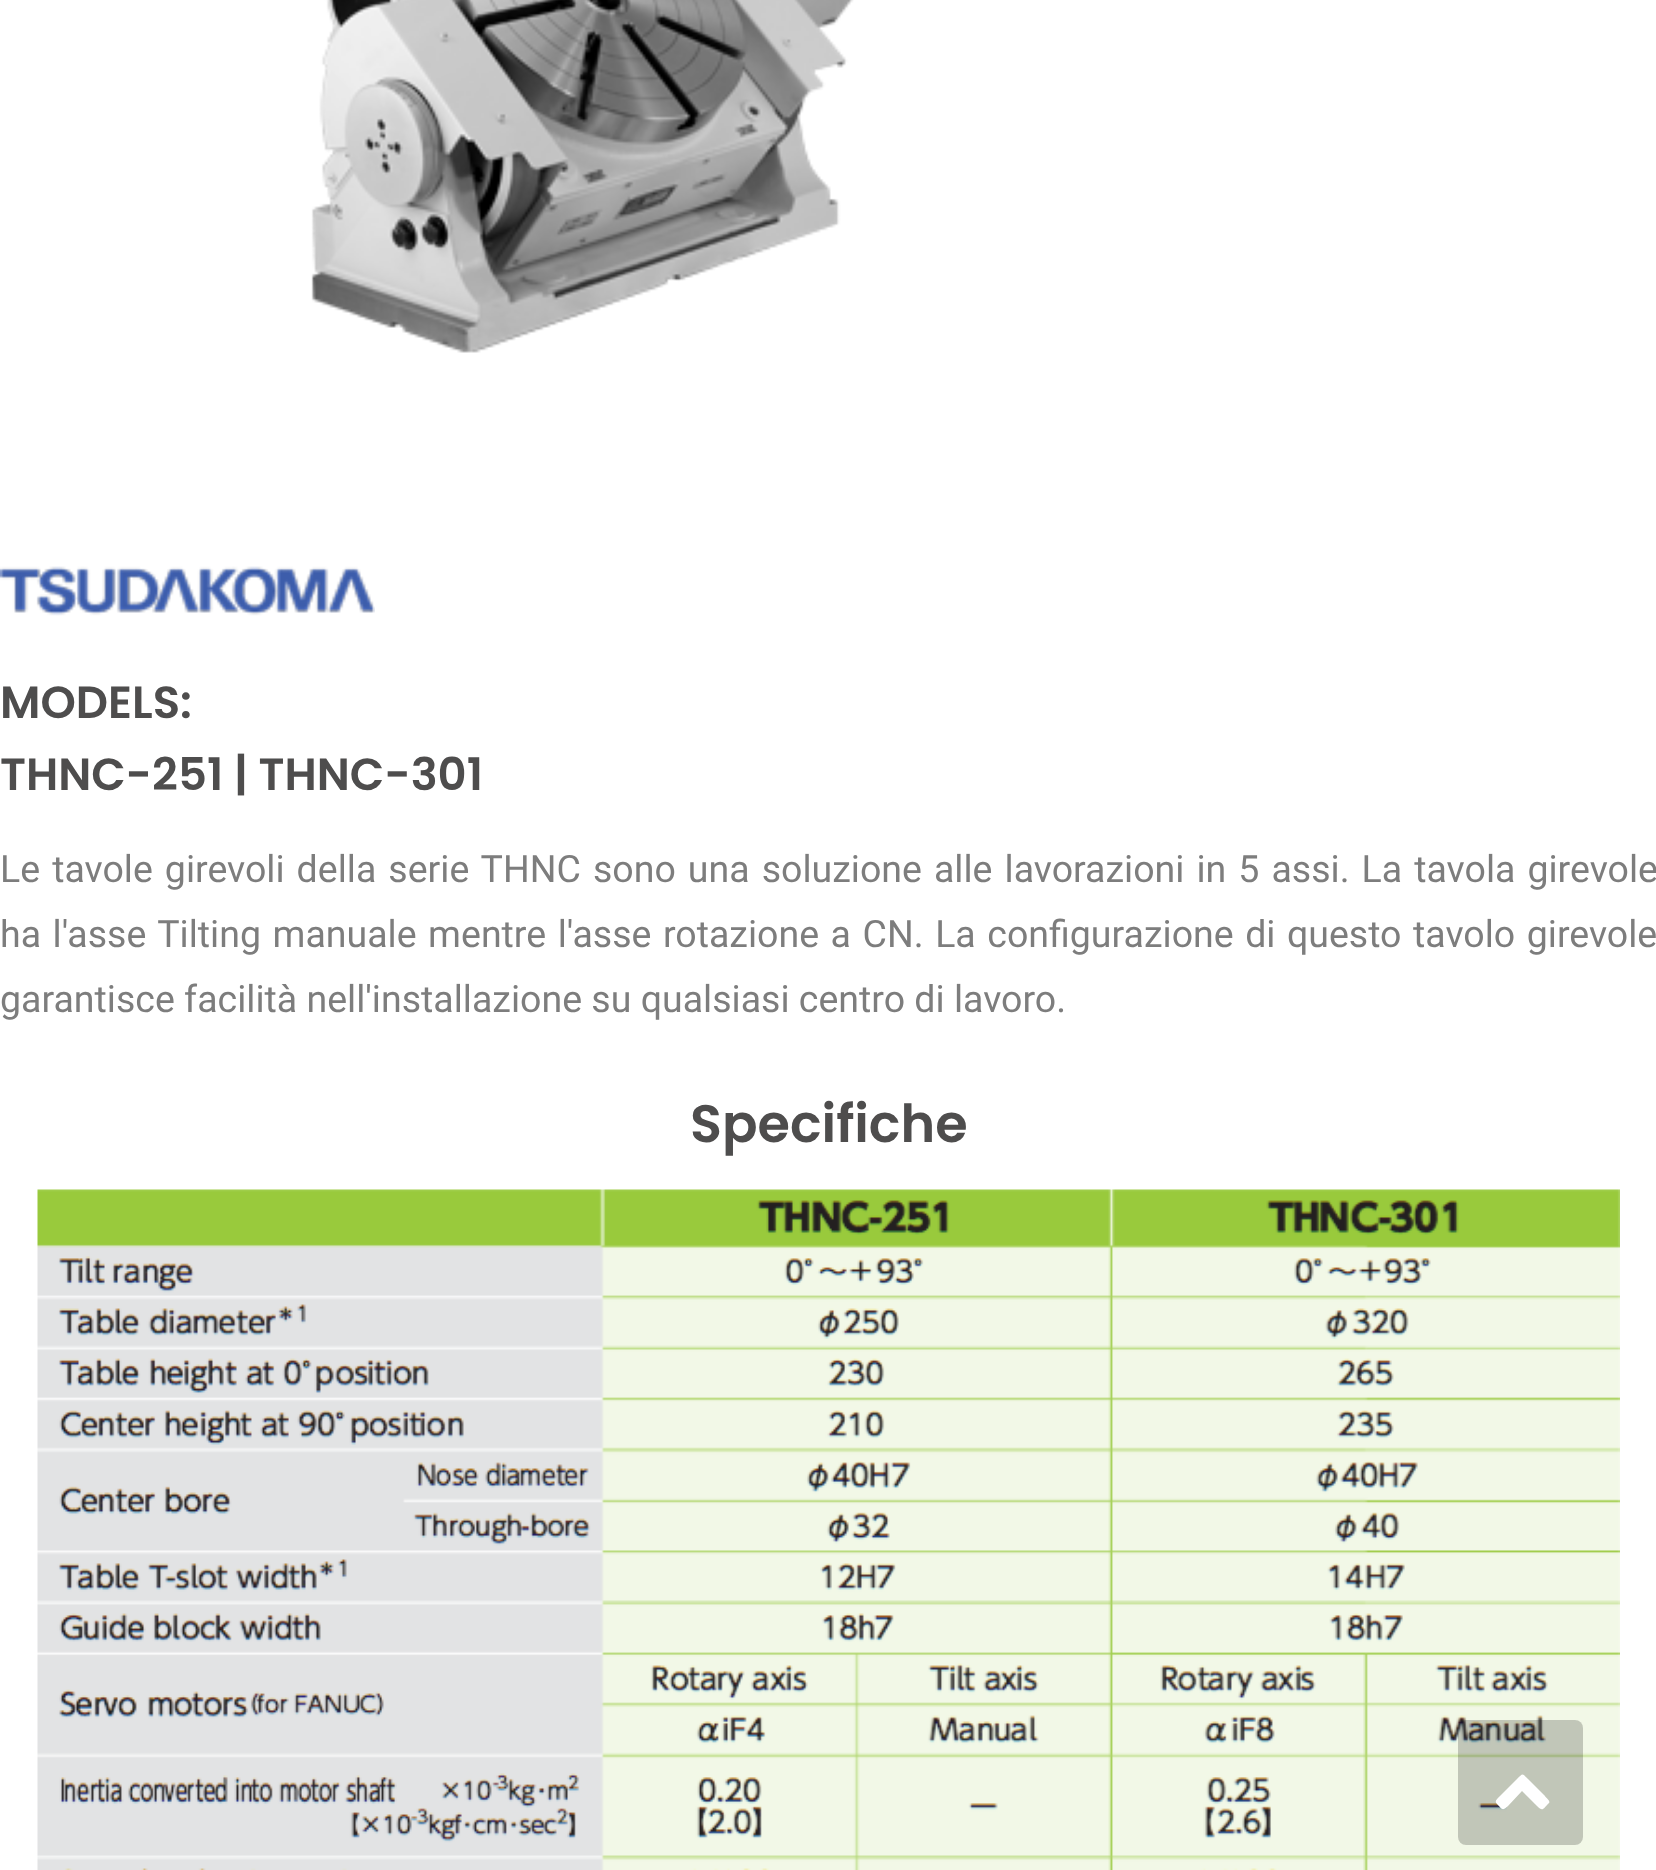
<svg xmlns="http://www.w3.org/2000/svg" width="1656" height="1870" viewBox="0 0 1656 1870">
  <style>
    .t1 { font: 600 45px Poppins; fill: #4e4d4d; }
    .t2 { font: 37.5px Roboto; fill: #7d7d7d; }
    .t3 { font: 600 52.5px Poppins; fill: #4e4d4d; }
  </style>
  <rect width="100%" height="100%" fill="#fff"/>
  <image x="311" y="0" width="543" height="353" href="images/1.png"/>
  <image x="0" y="566" width="375" height="50" href="images/2.png"/>
  <text x="0" y="718" class="t1">MODELS:</text>
  <text x="0" y="790" class="t1">THNC-251 | THNC-301</text>
  <text x="0" y="882" word-spacing="2.75" class="t2">Le tavole girevoli della serie THNC sono una soluzione alle lavorazioni in 5 assi. La tavola girevole</text>
  <text x="0" y="947" word-spacing="2.25" class="t2">ha l'asse Tilting manuale mentre l'asse rotazione a CN. La configurazione di questo tavolo girevole</text>
  <text x="0" y="1012" class="t2">garantisce facilità nell'installazione su qualsiasi centro di lavoro.</text>
  <text x="690" y="1142" class="t3">Specifiche</text>
  <image x="37" y="1189" width="1583" height="681" href="images/3.png"/>
  <rect x="1458" y="1720" width="125" height="125" rx="8" fill="#00000033"/>
  <path d="M1549 1803C1543 1809 1543 1812 1537 1806L1522 1791L1508 1806C1502 1811 1503 1810 1497 1804C1494 1801 1497 1799 1500 1796L1517 1779C1523 1773 1522 1773 1528 1779L1545 1796C1545 1797 1551 1801 1549 1803Z" fill="#fff"/>
</svg>
